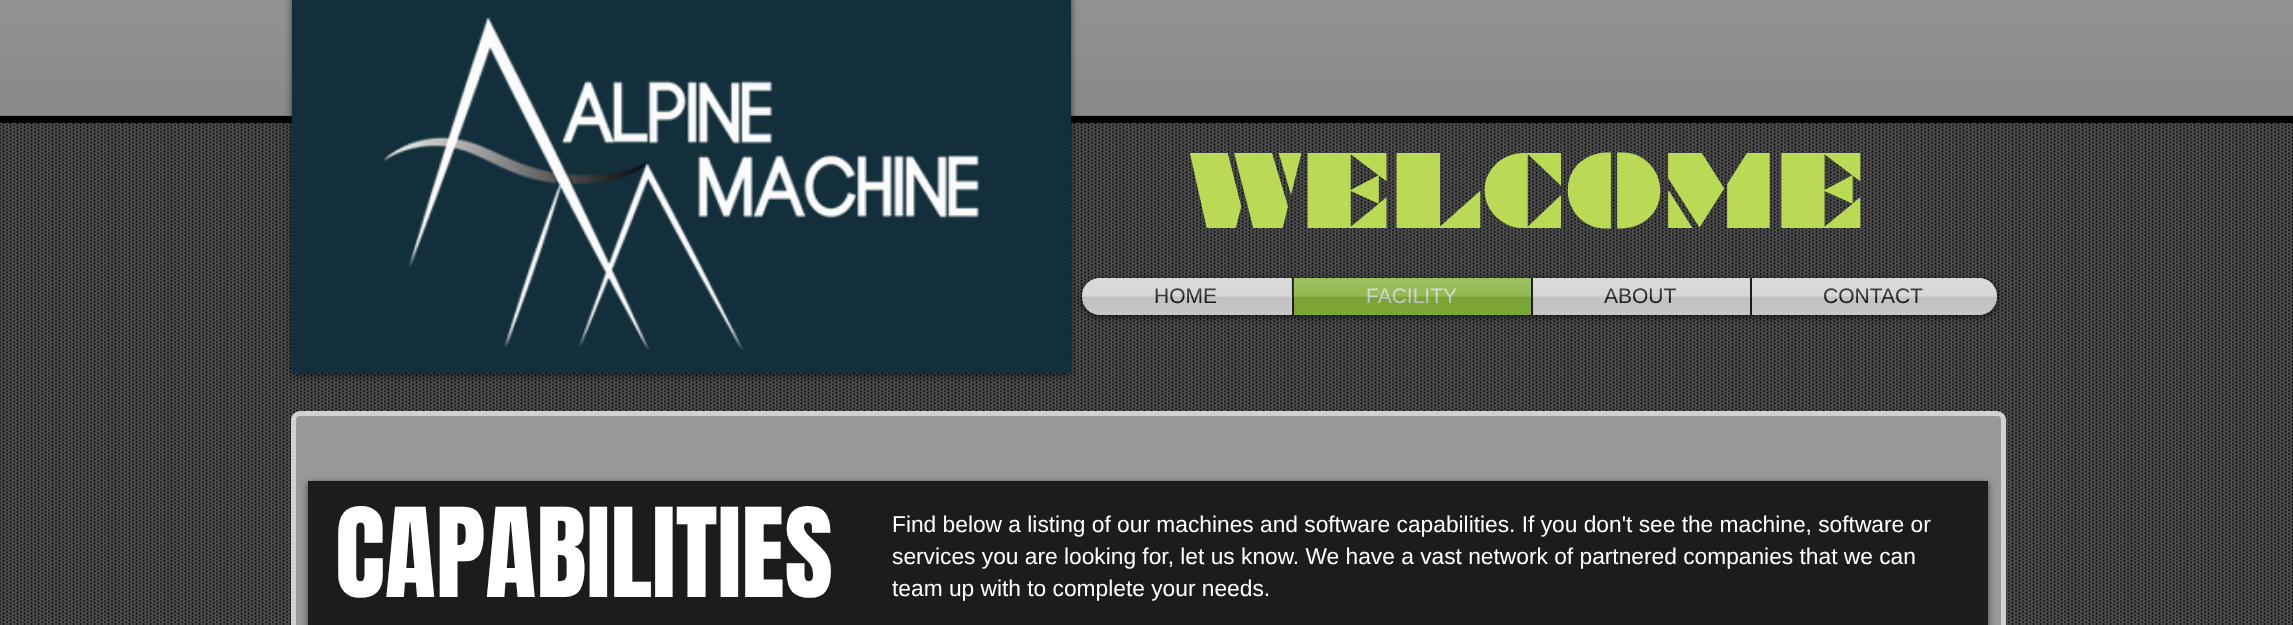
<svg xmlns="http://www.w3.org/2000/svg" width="2293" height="625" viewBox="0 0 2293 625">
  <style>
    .t1 { font: 21px Liberation Sans; fill: #1c1c1c; }
    .t2 { font: 98px 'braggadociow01'; fill: #bada55; }
    .t3 { font: 21px Liberation Sans; fill: #d1d1d1; }
    .t4 { font: 105px Anton; fill: #fff; }
    .t5 { font: 22.75px Liberation Sans; fill: #fff; }
  </style>
  <rect width="100%" height="100%" fill="#515151"/>
  <image x="0" y="123" width="2293" height="502" href="images/1.png"/>
  <rect x="0" y="0" width="2293" height="116" fill="#6d6d6d"/>
  <rect x="0" y="116" width="2293" height="7" fill="#000"/>
  <image x="0" y="0" width="2293" height="116" href="images/3.png"/>
  <rect x="1082" y="280" width="915" height="37" rx="18" fill="#00000099" filter="blur(3.5px)"/>
  <image x="1081" y="278" width="916" height="37" href="images/4.png"/>
  <path d="M1100 278H1292V315H1100C1090 315 1082 307 1082 297V296C1082 286 1090 278 1100 278Z" fill="#d1d1d1"/>
  <text x="1154" y="303" class="t1">HOME</text>
  <image x="1081" y="278" width="210" height="37" href="images/5.png"/>
  <rect x="292" y="-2" width="779" height="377" fill="#00000099" filter="blur(3.5px)"/>
  <rect x="292" y="0" width="779" height="373" fill="#132f3b"/>
  <image x="383" y="17" width="597" height="333" href="images/2.png"/>
  <text x="1189" y="228" class="t2">WELCOME</text>
  <rect x="1294" y="278" width="237" height="37" fill="#83b13a"/>
  <rect x="1292" y="278" width="2" height="37" fill="#1c1c1c"/>
  <text x="1366" y="303" class="t3">FACILITY</text>
  <image x="1293" y="278" width="238" height="37" href="images/6.png"/>
  <rect x="1533" y="278" width="217" height="37" fill="#d1d1d1"/>
  <rect x="1531" y="278" width="2" height="37" fill="#1c1c1c"/>
  <text x="1604" y="303" class="t1">ABOUT</text>
  <image x="1533" y="278" width="217" height="37" href="images/7.png"/>
  <path d="M1750 278H1979C1989 278 1997 286 1997 296V297C1997 307 1989 315 1979 315H1750Z" fill="#d1d1d1"/>
  <rect x="1750" y="278" width="2" height="37" fill="#1c1c1c"/>
  <text x="1823" y="303" class="t1">CONTACT</text>
  <image x="1752" y="278" width="245" height="37" href="images/8.png"/>
  <rect x="293.5" y="413.5" width="1710" height="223" rx="6.5" fill="#999" stroke="#d1d1d1" stroke-width="5"/>
  <rect x="308" y="483" width="1680" height="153" fill="#00000099" filter="blur(3.5px)"/>
  <rect x="308" y="481" width="1680" height="144" fill="#1c1c1c"/>
  <text x="335" y="597" class="t4">CAPABILITIES</text>
  <text x="892" y="532" class="t5">Find below a listing of our machines and software capabilities. If you don't see the machine, software or</text>
  <text x="892" y="564" class="t5">services you are looking for, let us know. We have a vast network of partnered companies that we can</text>
  <text x="892" y="596" class="t5">team up with to complete your needs.</text>
</svg>
